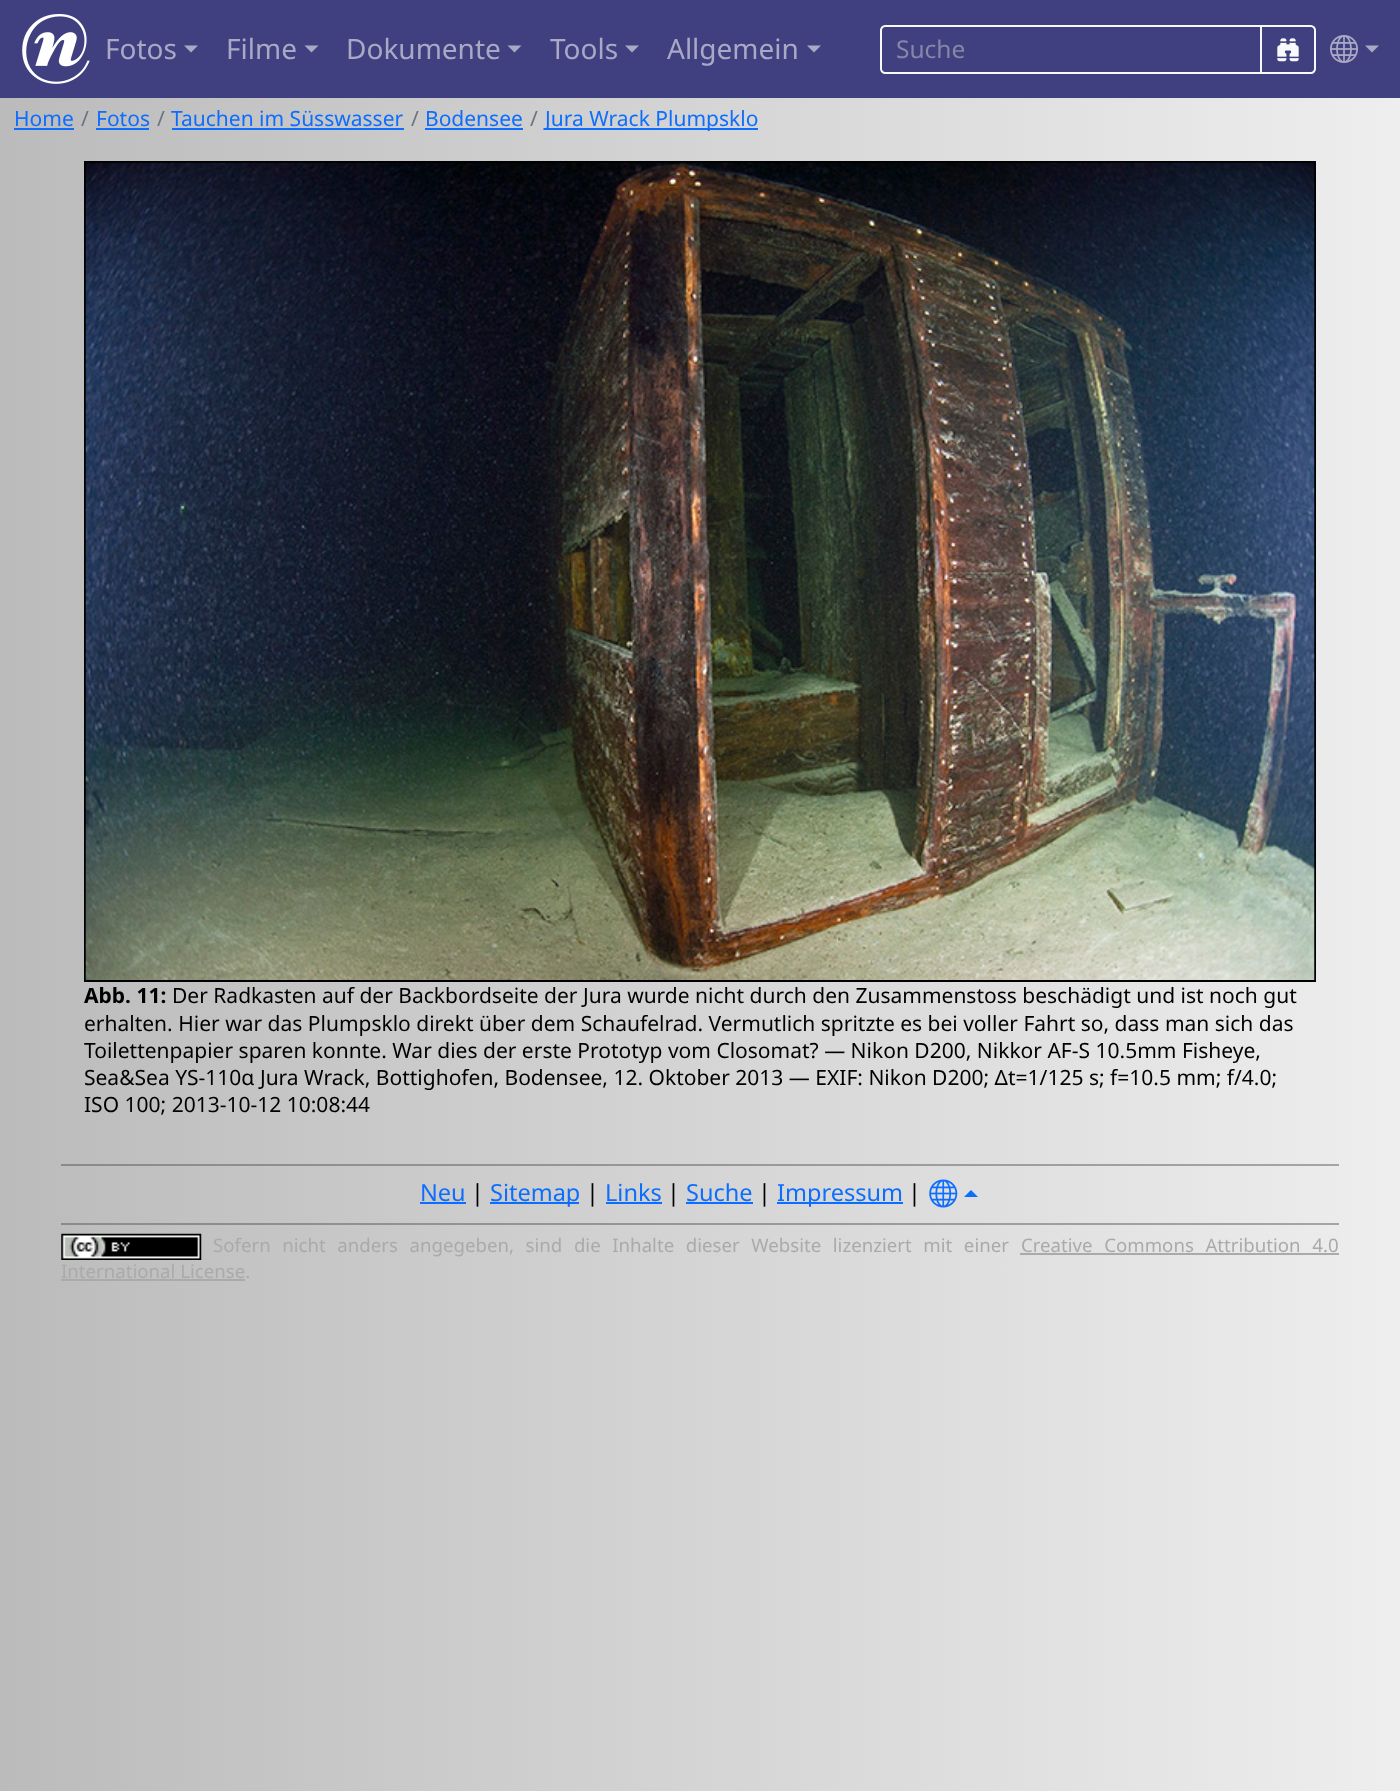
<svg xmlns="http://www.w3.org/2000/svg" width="1400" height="1791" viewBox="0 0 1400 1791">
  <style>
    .t1 { font: 28px Noto Sans; fill: #a9a9c6; }
    .t2 { font: 24.5px Noto Sans; fill: #8686a6; }
    .t3 { font: 21px Noto Sans; fill: #0d6efd; }
    .t4 { font: 21px Noto Sans; fill: #6c757d; }
    .t5 { font: bold 21px Noto Sans; fill: #000; }
    .t6 { font: 21px Noto Sans; fill: #000; }
    .t7 { font: 23.5px Noto Sans; fill: #0d6efd; }
    .t8 { font: 23.5px Noto Sans; fill: #000; }
    .t9 { font: 18.65px Noto Sans; fill: #aaa; }
  </style>
  <defs>
    <linearGradient id="g1" gradientUnits="userSpaceOnUse" x1="0" y1="661" x2="1400" y2="661"><stop offset="0" stop-color="#bbb"/><stop offset="1" stop-color="#eee"/></linearGradient>
    <linearGradient id="g2" gradientUnits="userSpaceOnUse" x1="0" y1="661" x2="1400" y2="661"><stop offset="0" stop-color="#898989"/><stop offset="1" stop-color="#a6a6a6"/></linearGradient>
  </defs>
  <rect width="100%" height="100%" fill="#fff"/>
  <rect x="0" y="98" width="1400" height="1693" fill="url(#g1)"/>
  <rect x="61" y="1223" width="1278" height="2" fill="url(#g2)"/>
  <rect x="61" y="1164" width="1278" height="2" fill="url(#g2)"/>
  <rect x="0" y="0" width="1400" height="98" fill="#404080"/>
  <image x="22" y="14" width="68" height="70" href="images/1.png"/>
  <text x="105" y="59" class="t1">Fotos</text>
  <path d="M184 45.5H198L191 52.5Z" fill="#a9a9c6"/>
  <text x="226" y="59" class="t1">Filme</text>
  <path d="M304.5 45.5H318.5L311.5 52.5Z" fill="#a9a9c6"/>
  <text x="346" y="59" class="t1">Dokumente</text>
  <path d="M507.5 45.5H521.5L514.5 52.5Z" fill="#a9a9c6"/>
  <text x="550" y="59" class="t1">Tools</text>
  <path d="M625 45.5H639L632 52.5Z" fill="#a9a9c6"/>
  <text x="667" y="59" class="t1">Allgemein</text>
  <path d="M807 45.5H821L814 52.5Z" fill="#a9a9c6"/>
  <path d="M885 26H1261V73H885C883 73 881 71 881 69V30C881 28 883 26 885 26Z" fill="none" stroke="#f8f9fa" stroke-width="2"/>
  <text x="896" y="58" class="t2">Suche</text>
  <path d="M1261 26H1311C1313 26 1315 28 1315 30V69C1315 71 1313 73 1311 73H1261Z" fill="none" stroke="#f8f9fa" stroke-width="2"/>
  <image x="1277" y="38" width="22" height="24" href="images/2.png"/>
  <image x="1330" y="35" width="28" height="28" href="images/3.png"/>
  <path d="M1365 45.5H1379L1372 52.5Z" fill="#a9a9c6"/>
  <text x="14" y="126" class="t3">Home</text>
  <rect x="14" y="128" width="60" height="2" fill="#0d6efd"/>
  <text x="81" y="126" class="t4">/</text>
  <text x="96" y="126" class="t3">Fotos</text>
  <rect x="96" y="128" width="53" height="2" fill="#0d6efd"/>
  <text x="157" y="126" class="t4">/</text>
  <text x="171" y="126" class="t3">Tauchen im Süsswasser</text>
  <rect x="172" y="128" width="232" height="2" fill="#0d6efd"/>
  <text x="411" y="126" class="t4">/</text>
  <text x="425" y="126" class="t3">Bodensee</text>
  <rect x="425" y="128" width="98" height="2" fill="#0d6efd"/>
  <text x="530" y="126" class="t4">/</text>
  <rect x="544" y="128" width="214" height="2" fill="#0d6efd"/>
  <text x="545" y="126" class="t3">Jura Wrack Plumpsklo</text>
  <rect x="85" y="162" width="1230" height="819" fill="none" stroke="#000" stroke-width="2"/>
  <image x="85" y="162" width="1230" height="818" href="images/4.png"/>
  <text x="84" y="1003" class="t5">Abb. 11:</text>
  <text x="172" y="1003" class="t6">Der Radkasten auf der Backbordseite der Jura wurde nicht durch den Zusammenstoss beschädigt und ist noch gut</text>
  <text x="84" y="1031" class="t6">erhalten. Hier war das Plumpsklo direkt über dem Schaufelrad. Vermutlich spritzte es bei voller Fahrt so, dass man sich das</text>
  <text x="84" y="1058" class="t6">Toilettenpapier sparen konnte. War dies der erste Prototyp vom Closomat? — Nikon D200, Nikkor AF-S 10.5mm Fisheye,</text>
  <text x="84" y="1085" class="t6">Sea&amp;Sea YS-110α Jura Wrack, Bottighofen, Bodensee, 12. Oktober 2013 — EXIF: Nikon D200; Δt=1/125 s; f=10.5 mm; f/4.0;</text>
  <text x="84" y="1112" class="t6">ISO 100; 2013-10-12 10:08:44</text>
  <text x="420" y="1201" class="t7">Neu</text>
  <rect x="420" y="1202" width="46" height="2" fill="#0d6efd"/>
  <text x="471" y="1201" class="t8">|</text>
  <rect x="490" y="1202" width="89" height="2" fill="#0d6efd"/>
  <text x="490" y="1201" class="t7">Sitemap</text>
  <text x="586" y="1201" class="t8">|</text>
  <text x="605" y="1201" class="t7">Links</text>
  <rect x="606" y="1202" width="56" height="2" fill="#0d6efd"/>
  <text x="667" y="1201" class="t8">|</text>
  <text x="686" y="1201" class="t7">Suche</text>
  <rect x="686" y="1202" width="67" height="2" fill="#0d6efd"/>
  <text x="758" y="1201" class="t8">|</text>
  <rect x="777" y="1202" width="126" height="2" fill="#0d6efd"/>
  <text x="777" y="1201" class="t7">Impressum</text>
  <text x="908" y="1201" class="t8">|</text>
  <image x="929" y="1179" width="29" height="29" href="images/5.png"/>
  <path d="M978 1197H964L971 1190Z" fill="#0d6efd"/>
  <image x="61" y="1233" width="141" height="27" href="images/6.png"/>
  <text x="213" y="1252" word-spacing="6.75" class="t9">Sofern nicht anders angegeben, sind die Inhalte dieser Website lizenziert mit einer</text>
  <text x="1021" y="1252" word-spacing="6.75" class="t9">Creative Commons Attribution 4.0</text>
  <rect x="1020" y="1253" width="319" height="2" fill="#aaa"/>
  <text x="61" y="1278" class="t9">International License.</text>
  <rect x="61" y="1279" width="184" height="2" fill="#aaa"/>
</svg>
